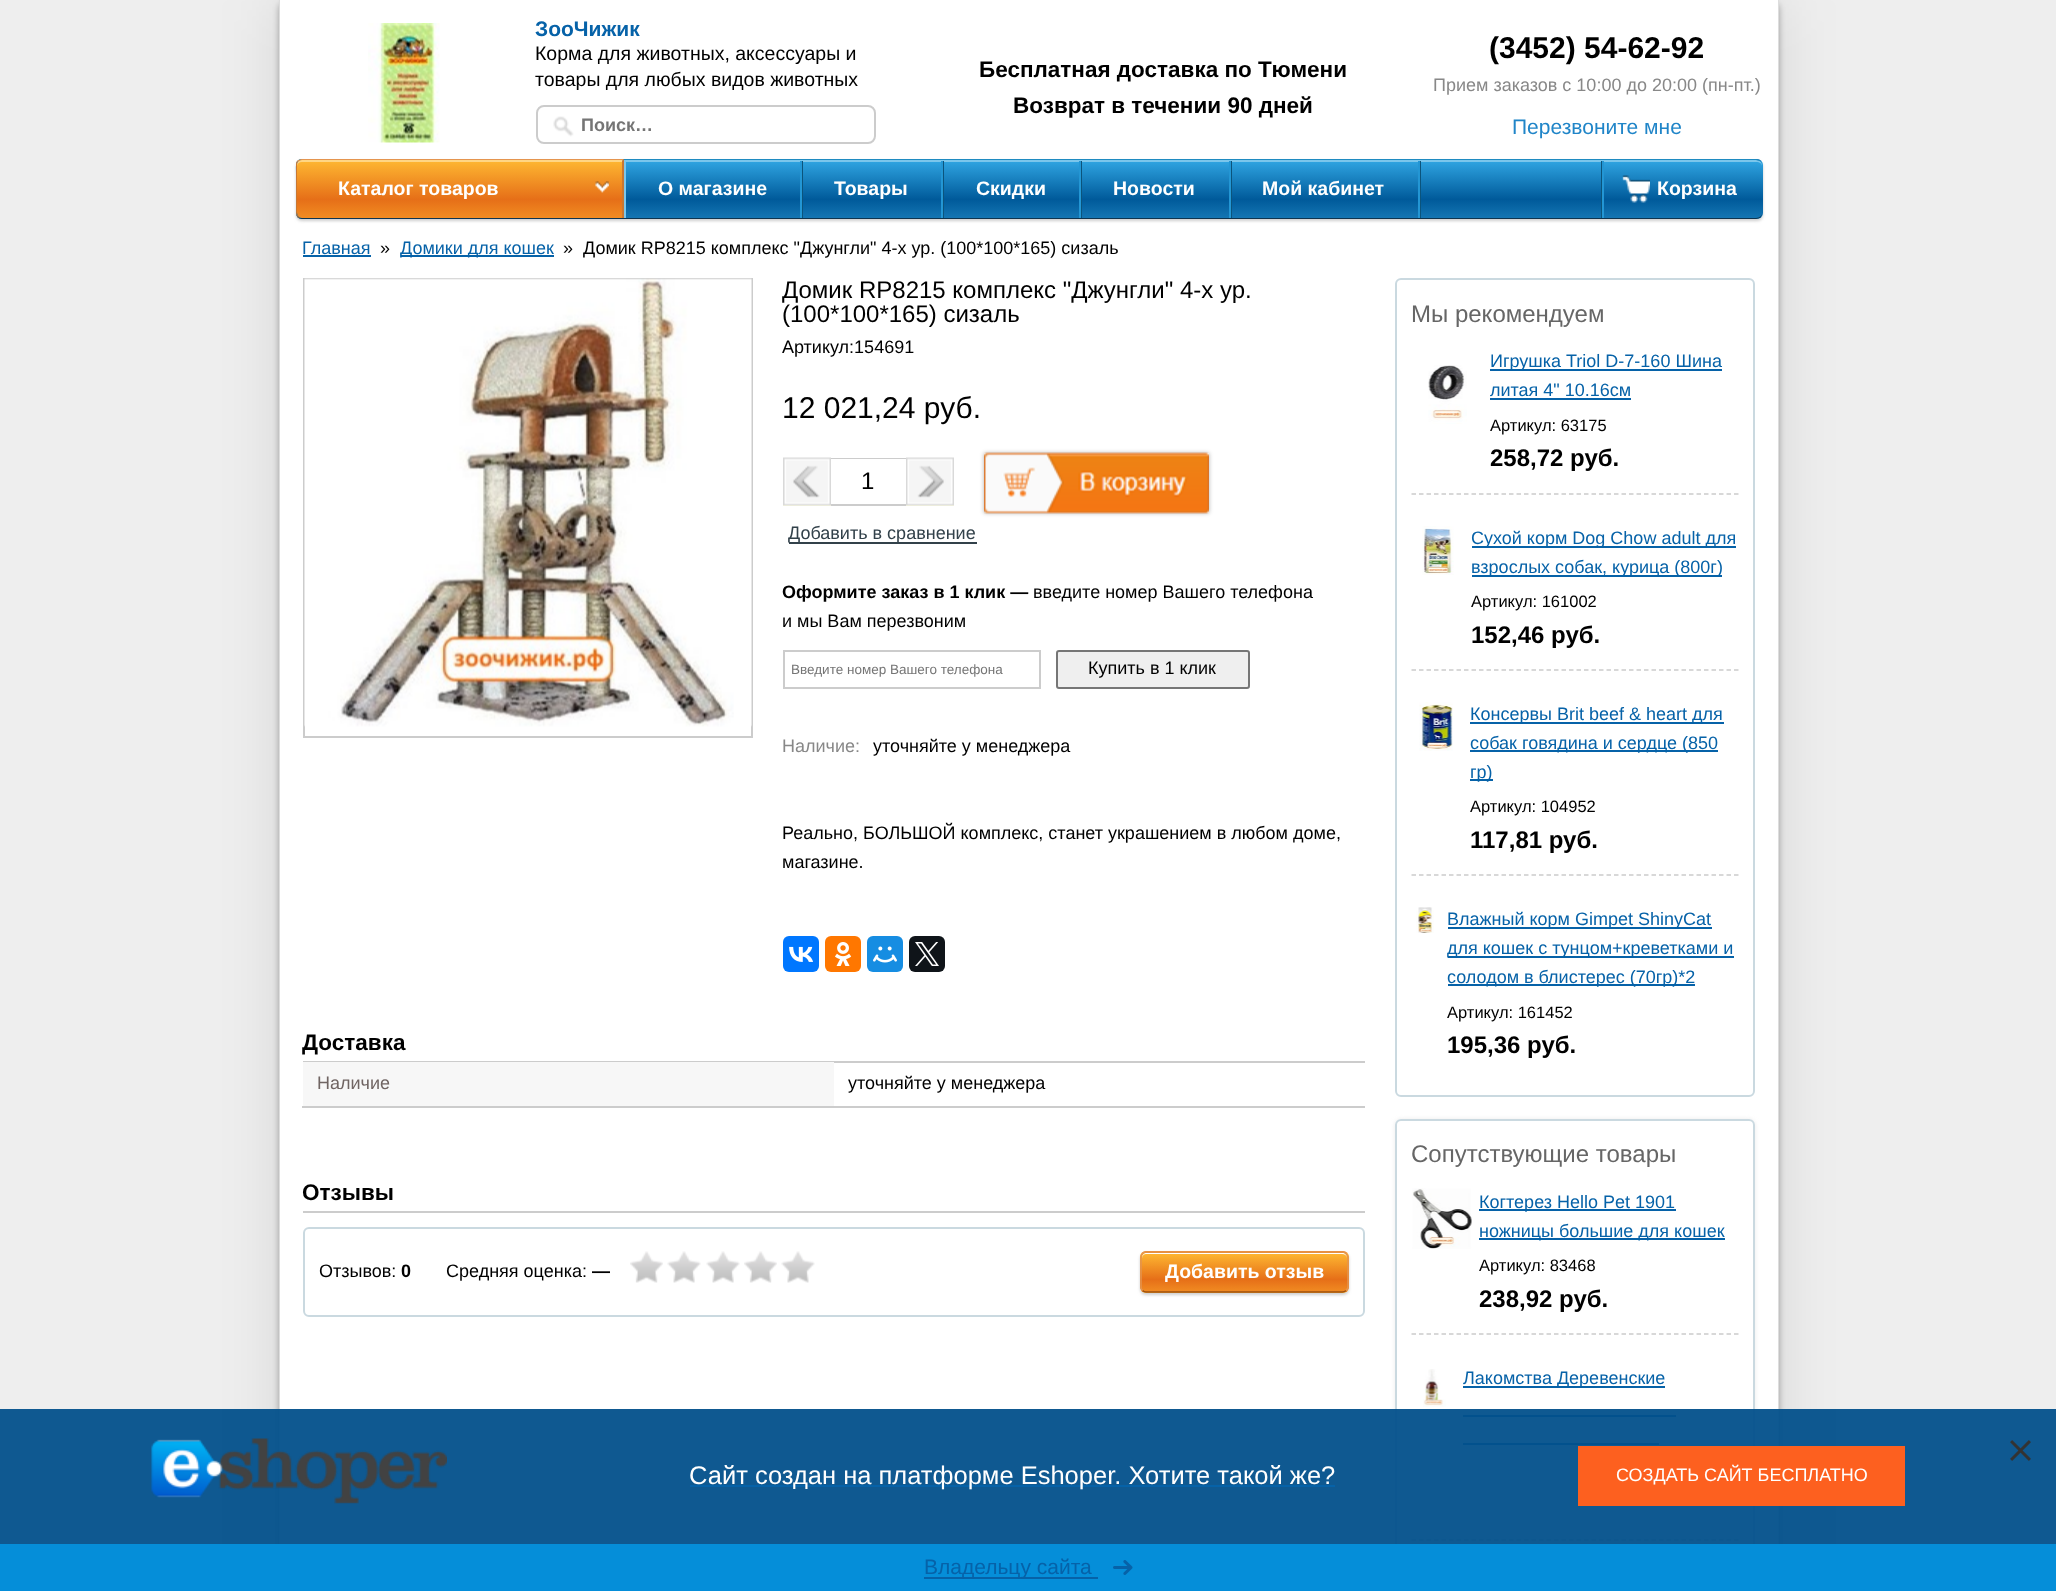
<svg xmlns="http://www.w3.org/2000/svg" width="2056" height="1591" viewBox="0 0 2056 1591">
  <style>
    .t1 { font: bold 21px Liberation Sans; fill: #0662a8; }
    .t2 { font: 19.5px Liberation Sans; fill: #000; }
    .t3 { font: bold 18px Liberation Sans; fill: #757575; }
    .t4 { font: bold 22.5px Liberation Sans; fill: #000; }
    .t5 { font: bold 30px Liberation Sans; fill: #000; }
    .t6 { font: 18px Liberation Sans; fill: #888; }
    .t7 { font: 21px Liberation Sans; fill: #2085c8; }
    .t8 { font: bold 19.5px Liberation Sans; fill: #fff; }
    .t9 { font: 18px Liberation Sans; fill: #0662a8; }
    .t10 { font: 18px Liberation Sans; fill: #000; }
    .t11 { font: 24px Liberation Sans; fill: #000; }
    .t12 { font: 30px Liberation Sans; fill: #000; }
    .t13 { font: 18px Liberation Sans; fill: #32414a; }
    .t14 { font: bold 18px Liberation Sans; fill: #000; }
    .t15 { font: 13.5px Liberation Sans; fill: #757575; }
    .t16 { font: 18px Liberation Sans; fill: #706563; }
    .t17 { font: 24px Liberation Sans; fill: #666; }
    .t18 { font: 16.5px Liberation Sans; fill: #000; }
    .t19 { font: bold 24px Liberation Sans; fill: #000; }
    .t20 { font: 25.5px Liberation Sans; fill: #fff; }
    .t21 { font: 18px Liberation Sans; fill: #fff; }
    .t22 { font: 21px Liberation Sans; fill: #0662a8; }
  </style>
  <defs>
    <clipPath id="clip1"><rect x="296" y="159" width="1467" height="60" rx="6"/></clipPath>
    <linearGradient id="g1" gradientUnits="userSpaceOnUse" x1="1029" y1="103" x2="1029" y2="161"><stop offset="0" stop-color="#30a6e3"/><stop offset="0.68" stop-color="#005a9a"/><stop offset="1" stop-color="#1476b3"/></linearGradient>
    <linearGradient id="g2" gradientUnits="userSpaceOnUse" x1="1029" y1="160" x2="1029" y2="218"><stop offset="0" stop-color="#30a6e3"/><stop offset="0.68" stop-color="#005a9a"/><stop offset="1" stop-color="#1476b3"/></linearGradient>
    <linearGradient id="g3" gradientUnits="userSpaceOnUse" x1="1029" y1="217" x2="1029" y2="275"><stop offset="0" stop-color="#30a6e3"/><stop offset="0.68" stop-color="#005a9a"/><stop offset="1" stop-color="#1476b3"/></linearGradient>
    <linearGradient id="g4" gradientUnits="userSpaceOnUse" x1="460" y1="160" x2="460" y2="218"><stop offset="0" stop-color="#feb832"/><stop offset="0.68" stop-color="#e66f18"/><stop offset="1" stop-color="#f18c22"/></linearGradient>
    <clipPath id="clip2"><path d="M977 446H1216V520H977ZM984 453H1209V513H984Z" clip-rule="evenodd"/></clipPath>
    <clipPath id="clip3"><rect x="1140" y="1251" width="209" height="42" rx="6"/></clipPath>
    <linearGradient id="g5" gradientUnits="userSpaceOnUse" x1="1244" y1="1214" x2="1244" y2="1253"><stop offset="0" stop-color="#feb832"/><stop offset="0.68" stop-color="#e66f18"/><stop offset="1" stop-color="#f18c22"/></linearGradient>
    <linearGradient id="g6" gradientUnits="userSpaceOnUse" x1="1244" y1="1253" x2="1244" y2="1292"><stop offset="0" stop-color="#feb832"/><stop offset="0.68" stop-color="#e66f18"/><stop offset="1" stop-color="#f18c22"/></linearGradient>
    <linearGradient id="g7" gradientUnits="userSpaceOnUse" x1="1244" y1="1292" x2="1244" y2="1331"><stop offset="0" stop-color="#feb832"/><stop offset="0.68" stop-color="#e66f18"/><stop offset="1" stop-color="#f18c22"/></linearGradient>
    <clipPath id="clip4"><path d="M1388 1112H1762V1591H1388ZM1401 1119H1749C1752.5 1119 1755 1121.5 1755 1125V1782C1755 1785.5 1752.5 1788 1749 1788H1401C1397.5 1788 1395 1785.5 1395 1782V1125C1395 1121.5 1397.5 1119 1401 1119Z" clip-rule="evenodd"/></clipPath>
  </defs>
  <rect width="100%" height="100%" fill="#eee"/>
  <rect x="279" y="0" width="1500" height="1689" rx="8" fill="#0000001a" filter="blur(30px)"/>
  <rect x="279" y="2" width="1500" height="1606" rx="8" fill="#0000004d" filter="blur(3px)"/>
  <rect x="280" y="0" width="1498" height="1544" fill="#fff"/>
  <path d="M279 0H1779V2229C1779 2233 1776 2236 1772 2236H286C282 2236 279 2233 279 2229ZM280 0H1778V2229C1778 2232 1775 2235 1772 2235H286C283 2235 280 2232 280 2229Z" fill="#ddd" fill-rule="evenodd"/>
  <image x="368" y="23" width="72" height="120" href="images/1.png"/>
  <text x="535" y="36" class="t1">ЗооЧижик</text>
  <text x="535" y="60" class="t2">Корма для животных, аксессуары и</text>
  <text x="535" y="86" class="t2">товары для любых видов животных</text>
  <rect x="537" y="106" width="338" height="37" rx="7" fill="none" stroke="#ccc" stroke-width="2"/>
  <image x="553" y="116" width="21" height="21" href="images/2.png"/>
  <text x="581" y="131" class="t3">Поиск…</text>
  <text x="979" y="77" class="t4">Бесплатная доставка по Тюмени</text>
  <text x="1013" y="113" class="t4">Возврат в течении 90 дней</text>
  <text x="1489" y="58" class="t5">(3452) 54-62-92</text>
  <text x="1433" y="91" class="t6">Прием заказов с 10:00 до 20:00 (пн-пт.)</text>
  <text x="1512" y="134" class="t7">Перезвоните мне</text>
  <rect x="296" y="161" width="1467" height="60" rx="6" fill="#cecece" filter="blur(1.5px)"/>
  <g clip-path="url(#clip1)">
    <rect x="296" y="159" width="1467" height="2" fill="url(#g1)"/>
    <rect x="296" y="161" width="1467" height="57" fill="url(#g2)"/>
    <rect x="296" y="218" width="1467" height="1" fill="url(#g3)"/>
  </g>
  <path d="M302 162H1756C1760 162 1762 164 1762 166V215V213V165C1762 163 1760 160 1756 160H302C298 160 296 163 296 165V213V215V174C296 168 294 162 302 162Z" fill="#7bc6eb"/>
  <path d="M302 159C298 159 296 162 296 165C296 163 298 160 302 160H1756C1760 160 1762 163 1762 165C1762 162 1760 159 1756 159Z" fill="#1f8bc1"/>
  <path d="M1756 219C1760 219 1762 216 1762 213C1762 215 1760 218 1756 218H302C298 218 296 215 296 213C296 216 298 219 302 219Z" fill="#0e344f"/>
  <path d="M302 160H622V218H302C299 218 297 215 297 212V165C297 163 299 160 302 160Z" fill="url(#g4)"/>
  <path d="M302 162H622V218V160H302C299 160 297 163 297 165V166C297 164 299 162 302 162Z" fill="#ffd684"/>
  <path d="M302 159H624L622 161V160H302C300 160 299 161 298 162L297 161C298 160 300 159 302 159Z" fill="#e5954f"/>
  <path d="M624 159V218H622V161Z" fill="#c87732"/>
  <path d="M300 218H299C297 217 296 214 296 212V165C296 164 296 162 297 161L298 162C297 163 297 164 297 165V212C297 214 298 217 300 218Z" fill="#c87732"/>
  <text x="338" y="195" class="t8">Каталог товаров</text>
  <image x="595" y="181" width="14" height="12" href="images/3.png"/>
  <path d="M626 218H803V161H801V218Z" fill="#0b547c"/>
  <rect x="800" y="161" width="2" height="57" fill="#2396d4"/>
  <rect x="624" y="161" width="2" height="57" fill="#7ac6ec"/>
  <text x="658" y="195" class="t8">О магазине</text>
  <path d="M803 218H944V161H942V218Z" fill="#0b547c"/>
  <rect x="941" y="161" width="2" height="57" fill="#2396d4"/>
  <text x="834" y="195" class="t8">Товары</text>
  <path d="M944 218H1082V161H1080V218Z" fill="#0b547c"/>
  <rect x="1079" y="161" width="2" height="57" fill="#2396d4"/>
  <text x="976" y="195" class="t8">Скидки</text>
  <path d="M1082 218H1232V161H1230V218Z" fill="#0b547c"/>
  <rect x="1229" y="161" width="2" height="57" fill="#2396d4"/>
  <text x="1113" y="195" class="t8">Новости</text>
  <path d="M1232 218H1421V161H1419V218Z" fill="#0b547c"/>
  <rect x="1418" y="161" width="2" height="57" fill="#2396d4"/>
  <text x="1262" y="195" class="t8">Мой кабинет</text>
  <path d="M1601 161V218H1761H1602V161Z" fill="#0b547c"/>
  <rect x="1602" y="161" width="2" height="57" fill="#2396d4"/>
  <image x="1622" y="175" width="28" height="28" href="images/4.png"/>
  <text x="1657" y="195" class="t8">Корзина</text>
  <text x="302" y="254" class="t9">Главная</text>
  <rect x="303" y="255" width="68" height="2" fill="#0662a8"/>
  <text x="380" y="254" class="t10">»</text>
  <rect x="401" y="255" width="153" height="2" fill="#0662a8"/>
  <text x="400" y="254" class="t9">Домики для кошек</text>
  <text x="563" y="254" class="t10">»</text>
  <text x="583" y="254" class="t10">Домик RP8215 комплекс "Джунгли" 4-х ур. (100*100*165) сизаль</text>
  <rect x="304" y="279" width="448" height="458" fill="none" stroke="#ccc" stroke-width="2"/>
  <image x="304" y="278" width="448" height="449" href="images/5.png"/>
  <text x="782" y="298" class="t11">Домик RP8215 комплекс "Джунгли" 4-х ур.</text>
  <text x="782" y="322" class="t11">(100*100*165) сизаль</text>
  <text x="782" y="353" class="t10">Артикул:154691</text>
  <text x="782" y="418" class="t12">12 021,24 руб.</text>
  <rect x="783" y="505" width="48" height="1" fill="#ffffe0"/>
  <image x="783" y="457" width="48" height="49" href="images/6.png"/>
  <rect x="831" y="458" width="75" height="1" fill="#ccc"/>
  <rect x="831" y="504" width="75" height="2" fill="#ccc"/>
  <text x="861" y="489" class="t11">1</text>
  <rect x="906" y="505" width="48" height="1" fill="#ffffe0"/>
  <image x="906" y="457" width="48" height="49" href="images/7.png"/>
  <g clip-path="url(#clip2)">
    <rect x="984" y="453" width="225" height="60" fill="#0000004d" filter="blur(2px)"/>
  </g>
  <image x="984" y="452" width="225" height="62" href="images/8.png"/>
  <rect x="789" y="542" width="188" height="2" fill="#32414a"/>
  <text x="788" y="539" class="t13">Добавить в сравнение</text>
  <text x="782" y="598" class="t14">Оформите заказ в 1 клик —</text>
  <text x="1033" y="598" class="t10">введите номер Вашего телефона</text>
  <text x="782" y="627" class="t10">и мы Вам перезвоним</text>
  <rect x="784" y="651" width="256" height="37" fill="none" stroke="#ccc" stroke-width="2"/>
  <text x="791" y="674" class="t15">Введите номер Вашего телефона</text>
  <rect x="1057" y="651" width="192" height="37" rx="2" fill="#efefef" stroke="#767676" stroke-width="2"/>
  <text x="1088" y="674" class="t10">Купить в 1 клик</text>
  <text x="782" y="752" class="t6">Наличие:</text>
  <text x="873" y="752" class="t10">уточняйте у менеджера</text>
  <text x="782" y="839" class="t10">Реально, БОЛЬШОЙ комплекс, станет украшением в любом доме,</text>
  <text x="782" y="868" class="t10">магазине.</text>
  <rect x="783" y="936" width="36" height="36" rx="6" fill="#07f"/>
  <image x="789" y="946" width="24" height="16" href="images/9.png"/>
  <rect x="825" y="936" width="36" height="36" rx="6" fill="#f70"/>
  <image x="835" y="942" width="17" height="24" href="images/10.png"/>
  <rect x="867" y="936" width="36" height="36" rx="6" fill="#168de2"/>
  <image x="873" y="946" width="24" height="17" href="images/11.png"/>
  <rect x="909" y="936" width="36" height="36" rx="6" fill="#0f1419"/>
  <image x="915" y="942" width="24" height="24" href="images/12.png"/>
  <rect x="303" y="1061" width="1062" height="2" fill="#ccc"/>
  <text x="302" y="1050" class="t4">Доставка</text>
  <rect x="303" y="1062" width="531" height="44" fill="#f7f7f7"/>
  <text x="317" y="1089" class="t16">Наличие</text>
  <rect x="302" y="1106" width="1063" height="2" fill="#ccc"/>
  <text x="848" y="1089" class="t10">уточняйте у менеджера</text>
  <rect x="303" y="1211" width="1062" height="2" fill="#ccc"/>
  <text x="302" y="1200" class="t4">Отзывы</text>
  <rect x="304" y="1228" width="1060" height="88" rx="5" fill="none" stroke="#cad9e0" stroke-width="2"/>
  <text x="319" y="1277" class="t10">Отзывов:</text>
  <text x="401" y="1277" class="t14">0</text>
  <text x="446" y="1277" class="t10">Средняя оценка:</text>
  <text x="592" y="1277" class="t14">—</text>
  <image x="630" y="1251" width="33" height="32" href="images/13.png"/>
  <image x="667" y="1251" width="34" height="32" href="images/14.png"/>
  <image x="706" y="1251" width="34" height="32" href="images/14.png"/>
  <image x="744" y="1251" width="33" height="32" href="images/13.png"/>
  <image x="781" y="1251" width="34" height="32" href="images/15.png"/>
  <rect x="1140" y="1253" width="209" height="42" rx="6" fill="#cecece" filter="blur(1.5px)"/>
  <g clip-path="url(#clip3)">
    <rect x="1140" y="1251" width="209" height="2" fill="url(#g5)"/>
    <rect x="1140" y="1253" width="209" height="39" fill="url(#g6)"/>
    <rect x="1140" y="1292" width="209" height="1" fill="url(#g7)"/>
  </g>
  <path d="M1146 1254H1342C1345 1254 1347 1256 1347 1258C1347 1255 1345 1253 1342 1253H1147C1144 1253 1142 1255 1142 1258C1142 1256 1144 1254 1146 1254Z" fill="#fff"/>
  <path d="M1346 1290.5C1345 1291.5 1344 1292 1342.5 1292H1146C1144.5 1292 1143.5 1291.5 1142.5 1290.5" fill="none" stroke="#9d5011" stroke-width="1.5"/>
  <path d="M1142.5 1290.5C1141.5 1289.5 1141 1288.5 1141 1287V1257C1141 1255.5 1141.5 1254.5 1142.5 1253.5C1143.5 1252.5 1144.5 1252 1146 1252H1342.5C1344 1252 1345 1252.5 1346 1253.5C1347 1254.5 1348 1255.5 1348 1257V1287C1348 1288.5 1347 1289.5 1346 1290.5" fill="none" stroke="#e4944f" stroke-width="1.5"/>
  <text x="1165" y="1278" class="t8">Добавить отзыв</text>
  <rect x="1396" y="279" width="358" height="817" rx="5" fill="none" stroke="#cad9e0" stroke-width="2"/>
  <text x="1411" y="322" class="t17">Мы рекомендуем</text>
  <path d="M1411.5 494H1738.5" fill="none" stroke="#ccc" stroke-width="1.5" stroke-dasharray="4.5 3"/>
  <image x="1428" y="365" width="39" height="59" href="images/16.png"/>
  <rect x="1490" y="369" width="232" height="2" fill="#0662a8"/>
  <text x="1490" y="367" class="t9">Игрушка Triol D-7-160 Шина</text>
  <text x="1490" y="396" class="t9">литая 4" 10.16см</text>
  <rect x="1490" y="398" width="141" height="2" fill="#0662a8"/>
  <text x="1490" y="431" class="t18">Артикул: 63175</text>
  <text x="1490" y="466" class="t19">258,72 руб.</text>
  <path d="M1411.5 670H1738.5" fill="none" stroke="#ccc" stroke-width="1.5" stroke-dasharray="4.5 3"/>
  <image x="1422" y="526" width="32" height="49" href="images/17.png"/>
  <rect x="1472" y="546" width="264" height="2" fill="#0662a8"/>
  <text x="1471" y="544" class="t9">Сухой корм Dog Chow adult для</text>
  <rect x="1472" y="575" width="250" height="2" fill="#0662a8"/>
  <text x="1471" y="573" class="t9">взрослых собак, курица (800г)</text>
  <text x="1471" y="607" class="t18">Артикул: 161002</text>
  <text x="1471" y="643" class="t19">152,46 руб.</text>
  <path d="M1411.5 875H1738.5" fill="none" stroke="#ccc" stroke-width="1.5" stroke-dasharray="4.5 3"/>
  <image x="1419" y="702" width="34" height="49" href="images/18.png"/>
  <rect x="1470" y="722" width="254" height="2" fill="#0662a8"/>
  <text x="1470" y="720" class="t9">Консервы Brit beef &amp; heart для</text>
  <rect x="1470" y="750" width="248" height="2" fill="#0662a8"/>
  <text x="1470" y="749" class="t9">собак говядина и сердце (850</text>
  <rect x="1470" y="779" width="23" height="2" fill="#0662a8"/>
  <text x="1470" y="778" class="t9">гр)</text>
  <text x="1470" y="812" class="t18">Артикул: 104952</text>
  <text x="1470" y="848" class="t19">117,81 руб.</text>
  <image x="1416" y="907" width="18" height="26" href="images/19.png"/>
  <rect x="1448" y="927" width="264" height="2" fill="#0662a8"/>
  <text x="1447" y="925" class="t9">Влажный корм Gimpet ShinyCat</text>
  <rect x="1448" y="956" width="286" height="2" fill="#0662a8"/>
  <text x="1447" y="954" class="t9">для кошек с тунцом+креветками и</text>
  <rect x="1448" y="984" width="247" height="2" fill="#0662a8"/>
  <text x="1447" y="983" class="t9">солодом в блистерес (70гр)*2</text>
  <text x="1447" y="1018" class="t18">Артикул: 161452</text>
  <text x="1447" y="1053" class="t19">195,36 руб.</text>
  <g clip-path="url(#clip4)">
    <rect x="1395" y="1119" width="360" height="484" rx="6" fill="#ececec" filter="blur(2px)"/>
  </g>
  <rect x="1396" y="1120" width="358" height="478" rx="5" fill="none" stroke="#cad9e0" stroke-width="2"/>
  <text x="1411" y="1162" class="t17">Сопутствующие товары</text>
  <path d="M1411.5 1334H1738.5" fill="none" stroke="#ccc" stroke-width="1.5" stroke-dasharray="4.5 3"/>
  <image x="1412" y="1188" width="60" height="61" href="images/20.png"/>
  <rect x="1479" y="1209" width="197" height="2" fill="#0662a8"/>
  <text x="1479" y="1208" class="t9">Когтерез Hello Pet 1901</text>
  <rect x="1479" y="1238" width="246" height="2" fill="#0662a8"/>
  <text x="1479" y="1237" class="t9">ножницы большие для кошек</text>
  <text x="1479" y="1271" class="t18">Артикул: 83468</text>
  <text x="1479" y="1307" class="t19">238,92 руб.</text>
  <path d="M1411.5 1540H1738.5" fill="none" stroke="#ccc" stroke-width="1.5" stroke-dasharray="4.5 3"/>
  <image x="1423" y="1369" width="23" height="38" href="images/21.png"/>
  <rect x="1463" y="1386" width="202" height="2" fill="#0662a8"/>
  <text x="1463" y="1384" class="t9">Лакомства Деревенские</text>
  <rect x="1463" y="1415" width="213" height="2" fill="#0662a8"/>
  <rect x="1463" y="1443" width="196" height="2" fill="#0662a8"/>
  <rect x="0" y="1409" width="2056" height="135" fill="#02508bf2"/>
  <image x="2010" y="1440" width="21" height="21" href="images/22.png"/>
  <image x="151" y="1438" width="296" height="66" href="images/23.png"/>
  <rect x="690" y="1485" width="645" height="2" fill="#0662a8"/>
  <text x="689" y="1484" class="t20">Сайт создан на платформе Eshoper. Хотите такой же?</text>
  <rect x="1578" y="1446" width="327" height="60" fill="#fd601f"/>
  <text x="1616" y="1481" class="t21">СОЗДАТЬ САЙТ БЕСПЛАТНО</text>
  <rect x="0" y="1544" width="2056" height="47" fill="#058ed9"/>
  <rect x="924" y="1577" width="174" height="2" fill="#0662a8"/>
  <text x="924" y="1574" class="t22">Владельцу сайта</text>
  <image x="1113" y="1560" width="20" height="15" href="images/24.png"/>
</svg>
